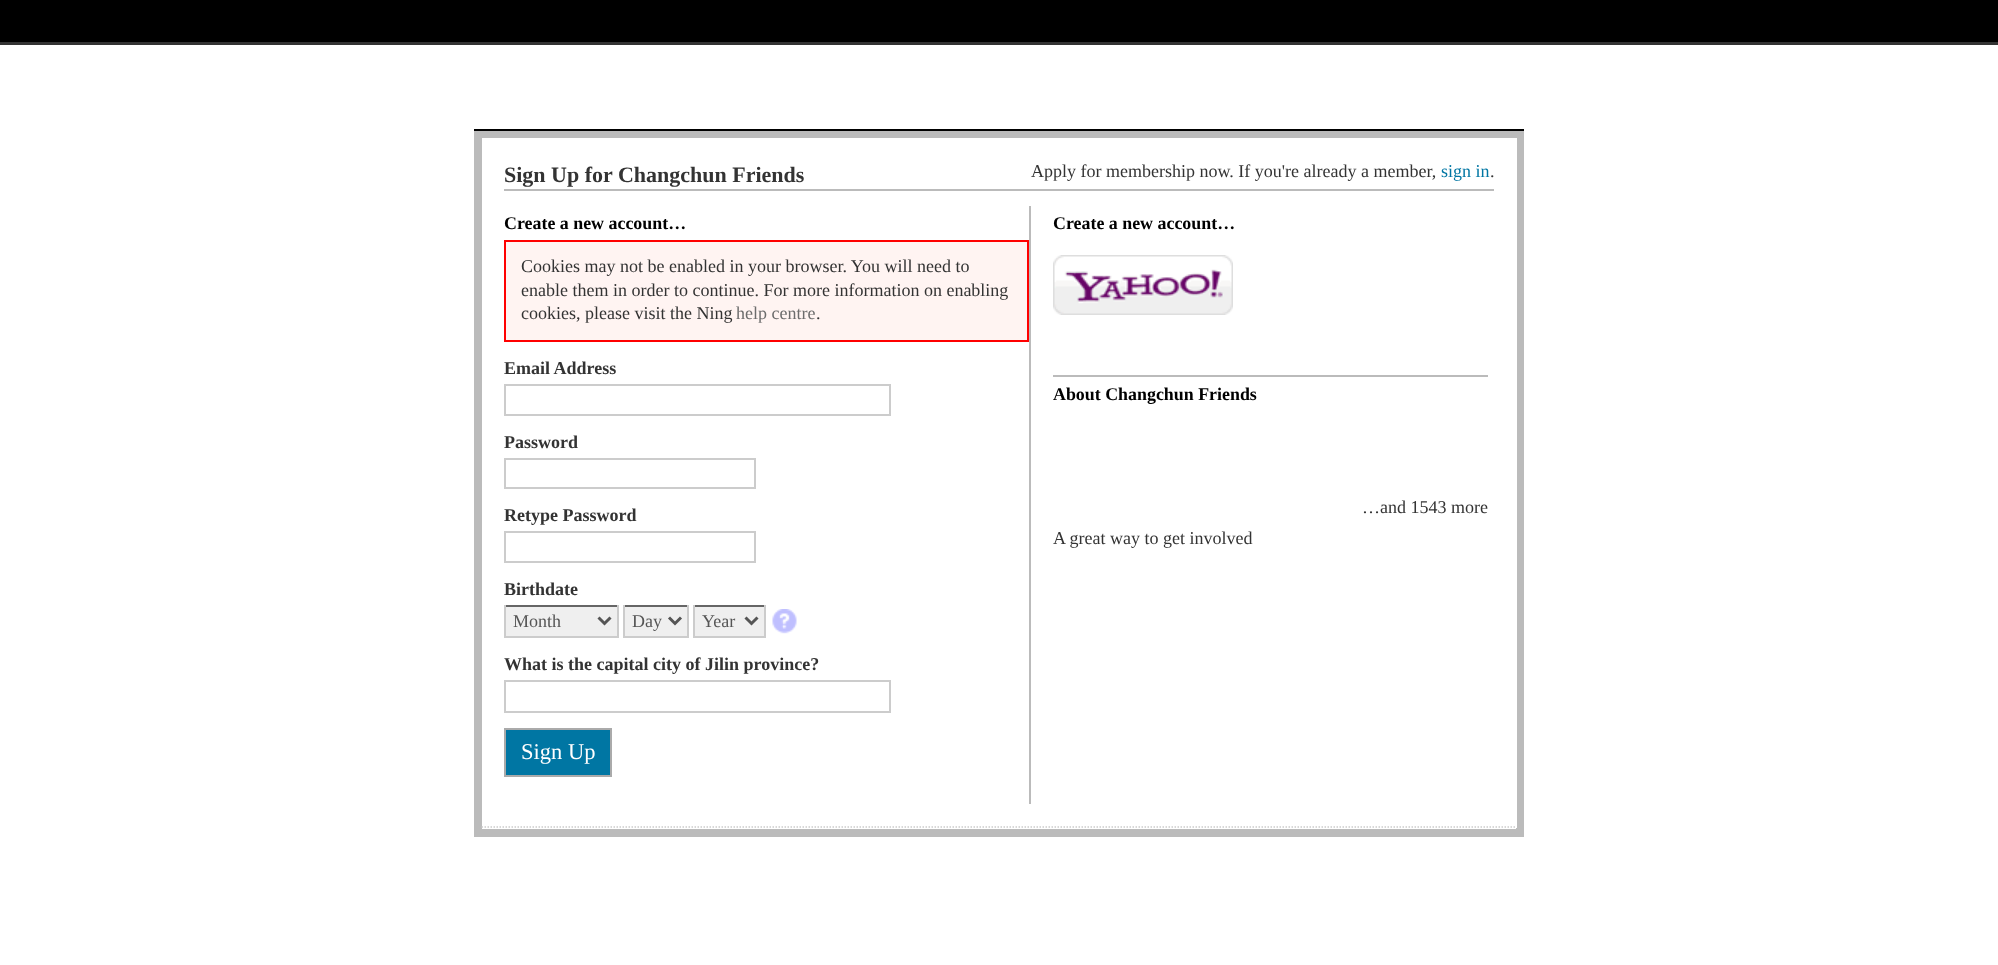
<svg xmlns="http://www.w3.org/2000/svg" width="1998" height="965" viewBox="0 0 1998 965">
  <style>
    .t1 { font: bold 22px Liberation Serif; fill: #333; }
    .t2 { font: 18px Liberation Serif; fill: #333; }
    .t3 { font: 18px Liberation Serif; fill: #0076a3; }
    .t4 { font: bold 17.9px Liberation Serif; fill: #000; }
    .t5 { font: 18px Liberation Serif; fill: #6c6c6c; }
    .t6 { font: bold 18px Liberation Serif; fill: #333; }
    .t7 { font: 18px Liberation Serif; fill: #555; }
    .t8 { font: 22.5px Liberation Serif; fill: #fff; }
  </style>
  <rect width="100%" height="100%" fill="#fff"/>
  <rect x="0" y="0" width="1998" height="42" fill="#000"/>
  <rect x="0" y="42" width="1998" height="3" fill="#333"/>
  <rect x="474" y="129" width="1050" height="2" fill="#000"/>
  <rect x="478" y="135" width="1042" height="698" fill="none" stroke="#bbb" stroke-width="8"/>
  <rect x="482" y="138" width="1035" height="690" fill="#fff"/>
  <path d="M481.5 827H1516.5" fill="none" stroke="#ccc" stroke-width="1.5" stroke-dasharray="1.5 1.5"/>
  <rect x="504" y="189" width="990" height="2" fill="#bbb"/>
  <text x="504" y="182" class="t1">Sign Up for Changchun Friends</text>
  <text x="1031" y="177" class="t2">Apply for membership now. If you're already a member,</text>
  <text x="1441" y="177" class="t3">sign in</text>
  <text x="1490" y="177" class="t2">.</text>
  <rect x="1029" y="206" width="2" height="598" fill="#bbb"/>
  <text x="504" y="229" class="t4">Create a new account…</text>
  <rect x="505" y="241" width="523" height="100" fill="#fff4f2" stroke="#f00" stroke-width="2"/>
  <text x="521" y="272" class="t2">Cookies may not be enabled in your browser. You will need to</text>
  <text x="521" y="296" class="t2">enable them in order to continue. For more information on enabling</text>
  <text x="521" y="319" class="t2">cookies, please visit the Ning</text>
  <text x="736" y="319" class="t5">help centre</text>
  <text x="816" y="319" class="t2">.</text>
  <text x="504" y="374" class="t6">Email Address</text>
  <rect x="505" y="385" width="385" height="30" fill="none" stroke="#ccc" stroke-width="2"/>
  <text x="504" y="448" class="t6">Password</text>
  <rect x="505" y="459" width="250" height="29" fill="none" stroke="#ccc" stroke-width="2"/>
  <text x="504" y="521" class="t6">Retype Password</text>
  <rect x="505" y="532" width="250" height="30" fill="none" stroke="#ccc" stroke-width="2"/>
  <text x="504" y="595" class="t6">Birthdate</text>
  <rect x="506" y="607" width="111" height="29" fill="#efefef"/>
  <rect x="504" y="605" width="114" height="2" fill="#666"/>
  <rect x="617" y="605" width="2" height="33" fill="#ccc"/>
  <rect x="504" y="636" width="114" height="2" fill="#ccc"/>
  <rect x="504" y="605" width="2" height="33" fill="#ccc"/>
  <path d="M598.5 617.5L604.5 623.5L610.5 617.5" fill="none" stroke="#555" stroke-width="3"/>
  <text x="513" y="627" class="t7">Month</text>
  <rect x="625" y="607" width="62" height="29" fill="#efefef"/>
  <rect x="623" y="605" width="66" height="2" fill="#666"/>
  <rect x="687" y="605" width="2" height="33" fill="#ccc"/>
  <rect x="623" y="636" width="66" height="2" fill="#ccc"/>
  <rect x="623" y="605" width="2" height="33" fill="#ccc"/>
  <path d="M669 617.5L675 623.5L681 617.5" fill="none" stroke="#555" stroke-width="3"/>
  <text x="632" y="627" class="t7">Day</text>
  <rect x="695" y="607" width="69" height="29" fill="#efefef"/>
  <rect x="693" y="605" width="72" height="2" fill="#666"/>
  <rect x="764" y="605" width="2" height="33" fill="#ccc"/>
  <rect x="693" y="636" width="72" height="2" fill="#ccc"/>
  <rect x="693" y="605" width="2" height="33" fill="#ccc"/>
  <path d="M745.5 617.5L751.5 623.5L757.5 617.5" fill="none" stroke="#555" stroke-width="3"/>
  <text x="702" y="627" class="t7">Year</text>
  <image x="772" y="609" width="25" height="25" href="images/1.png"/>
  <text x="504" y="670" class="t6">What is the capital city of Jilin province?</text>
  <rect x="505" y="681" width="385" height="31" fill="none" stroke="#ccc" stroke-width="2"/>
  <rect x="505" y="729" width="106" height="47" fill="#0076a3" stroke="#aaa" stroke-width="2"/>
  <text x="521" y="759" class="t8">Sign Up</text>
  <text x="1053" y="229" class="t4">Create a new account…</text>
  <rect x="1053" y="375" width="435" height="2" fill="#bbb"/>
  <image x="1053" y="255" width="180" height="60" href="images/2.png"/>
  <text x="1053" y="400" class="t4">About Changchun Friends</text>
  <text x="1362" y="513" class="t2">…and 1543 more</text>
  <text x="1053" y="544" class="t2">A great way to get involved</text>
</svg>
